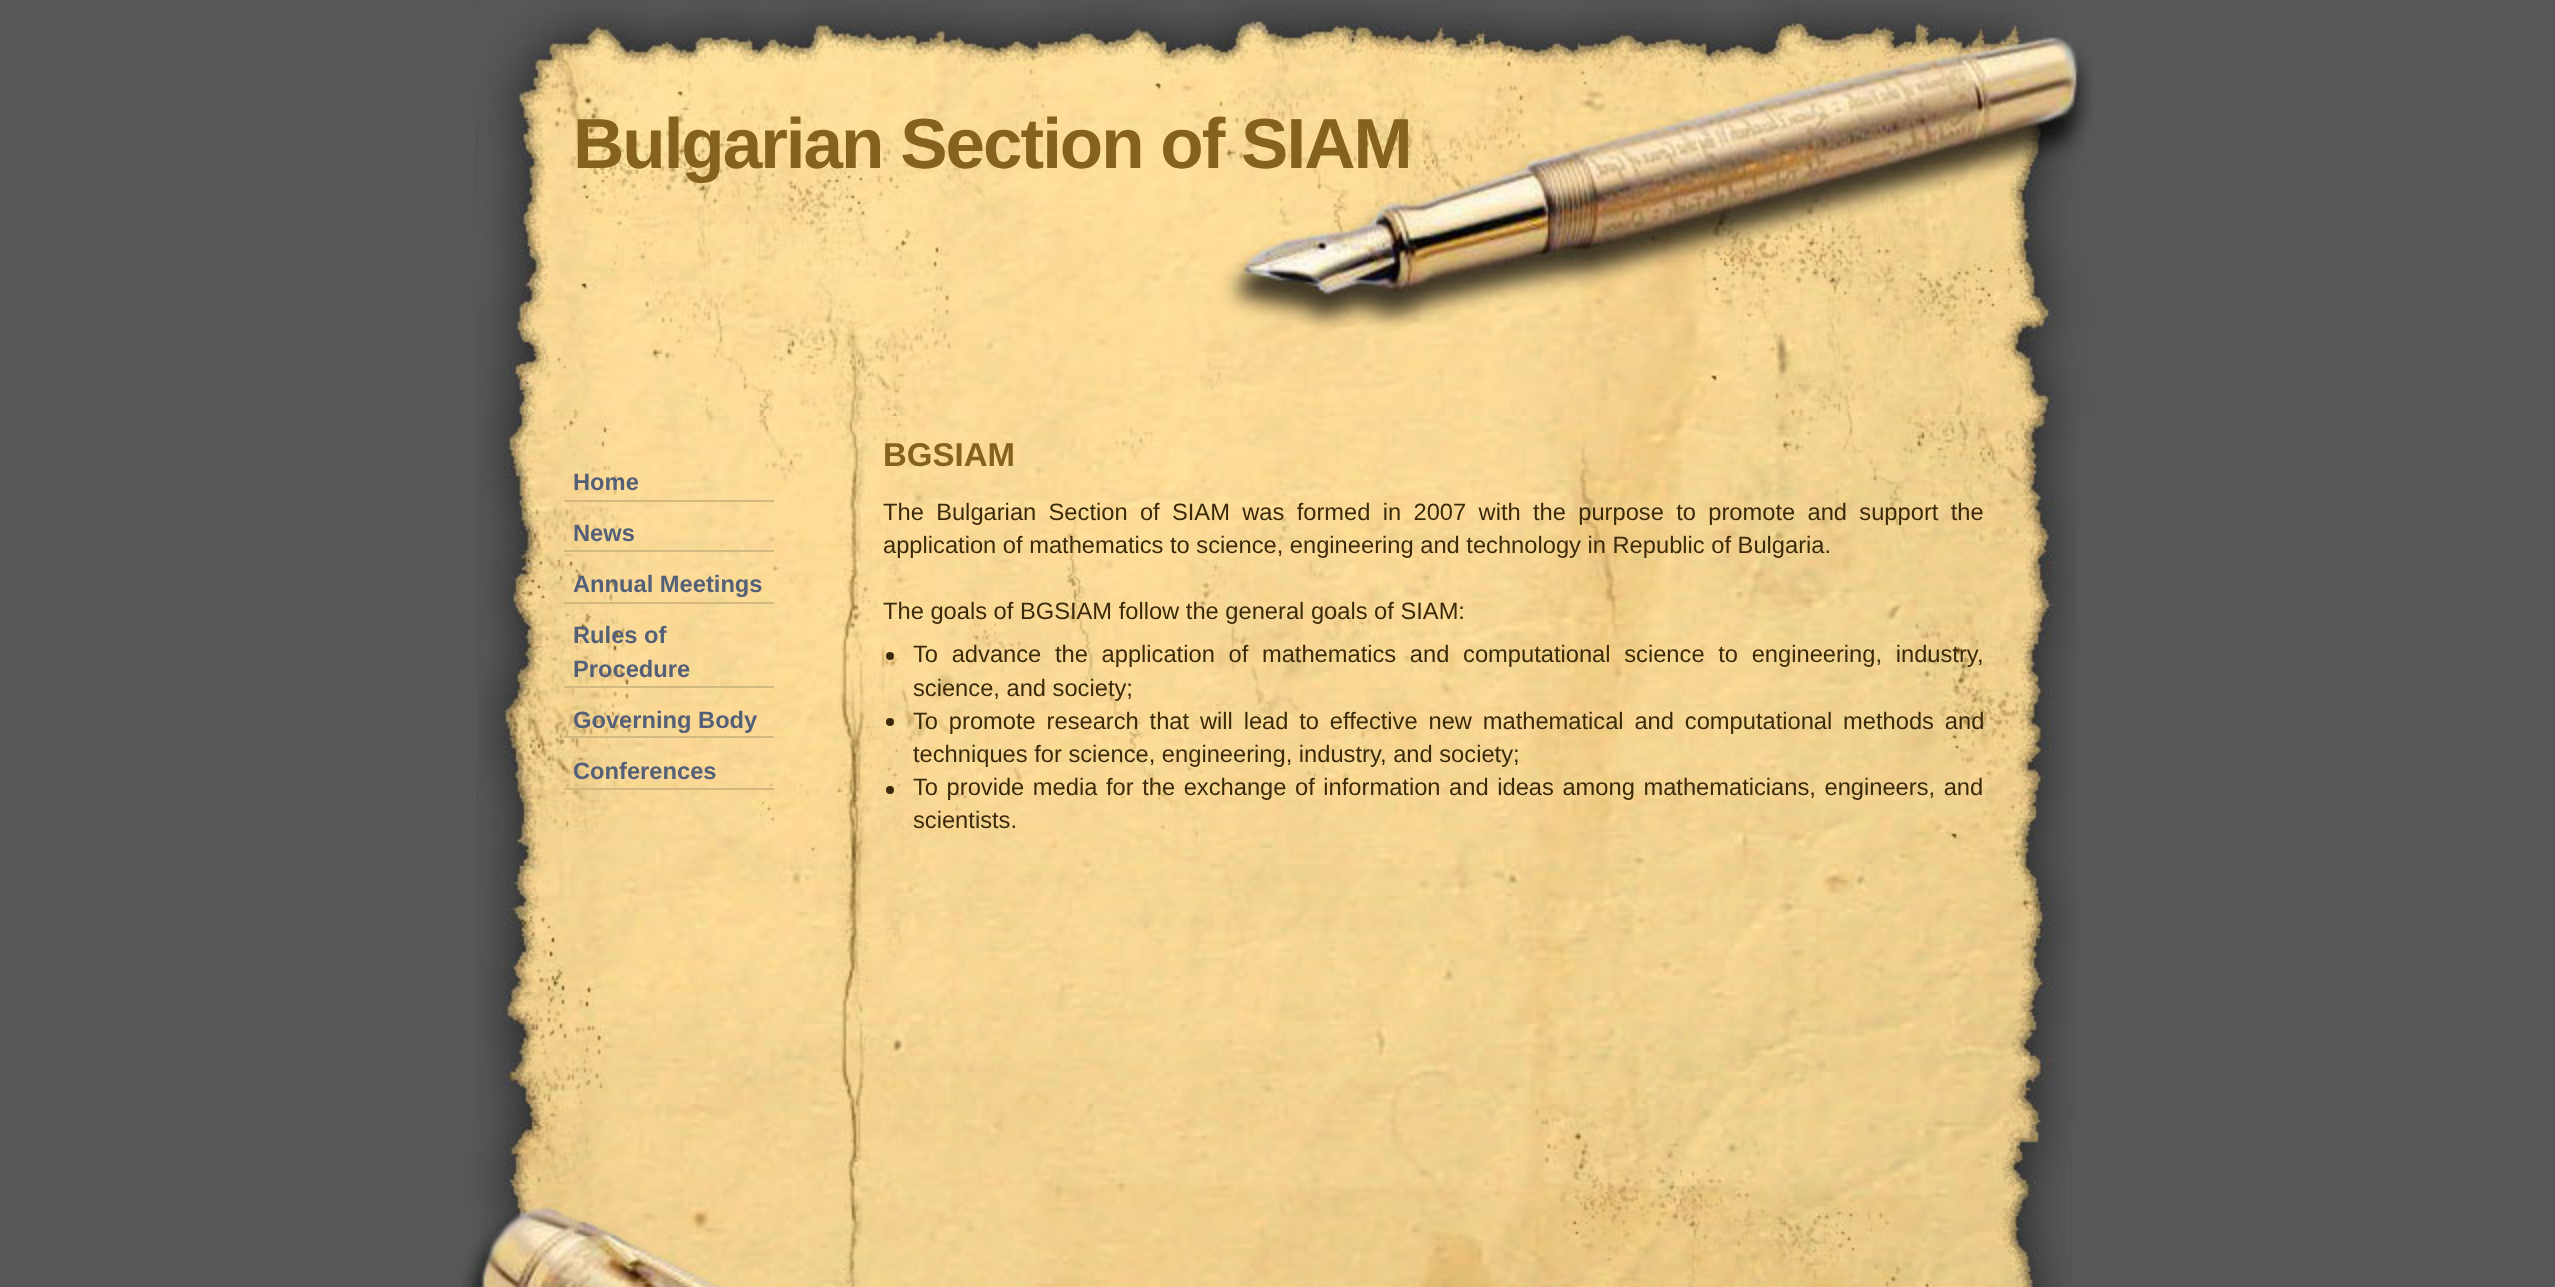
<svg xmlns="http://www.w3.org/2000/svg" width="2555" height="1287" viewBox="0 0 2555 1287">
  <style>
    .t1 { font: bold 71px Liberation Sans; letter-spacing: -2px; fill: #85621e; }
    .t2 { font: bold 23.7px Liberation Sans; fill: #546078; }
    .t3 { font: bold 33px Liberation Sans; fill: #85621e; }
    .t4 { font: 23.7px Liberation Sans; fill: #3b2a0a; }
  </style>
  <rect width="100%" height="100%" fill="#575757"/>
  <image x="476" y="0" width="1596" height="1287" href="images/1.png"/>
  <image x="478" y="0" width="1614" height="416" href="images/2.png"/>
  <text x="573" y="168" class="t1">Bulgarian Section of SIAM</text>
  <image x="479" y="416" width="1598" height="706" href="images/3.png"/>
  <rect x="564" y="500" width="210" height="2" fill="#d2b881"/>
  <text x="573" y="490" class="t2">Home</text>
  <rect x="564" y="550" width="210" height="2" fill="#d2b881"/>
  <text x="573" y="541" class="t2">News</text>
  <rect x="564" y="602" width="210" height="2" fill="#d2b881"/>
  <text x="573" y="592" class="t2">Annual Meetings</text>
  <rect x="564" y="686" width="210" height="2" fill="#d2b881"/>
  <text x="573" y="643" class="t2">Rules of</text>
  <text x="573" y="677" class="t2">Procedure</text>
  <rect x="564" y="736" width="210" height="2" fill="#d2b881"/>
  <text x="573" y="728" class="t2">Governing Body</text>
  <rect x="564" y="788" width="210" height="2" fill="#d2b881"/>
  <text x="573" y="779" class="t2">Conferences</text>
  <text x="883" y="466" class="t3">BGSIAM</text>
  <text x="883" y="520" word-spacing="5.75" class="t4">The Bulgarian Section of SIAM was formed in 2007 with the purpose to promote and support the</text>
  <text x="883" y="553" class="t4">application of mathematics to science, engineering and technology in Republic of Bulgaria.</text>
  <text x="883" y="619" class="t4">The goals of BGSIAM follow the general goals of SIAM:</text>
  <circle cx="890" cy="656" r="4" fill="#3b2a0a"/>
  <text x="913" y="662" word-spacing="7.1" class="t4">To advance the application of mathematics and computational science to engineering, industry,</text>
  <text x="913" y="696" class="t4">science, and society;</text>
  <circle cx="890" cy="722" r="4" fill="#3b2a0a"/>
  <text x="913" y="729" word-spacing="4.25" class="t4">To promote research that will lead to effective new mathematical and computational methods and</text>
  <text x="913" y="762" class="t4">techniques for science, engineering, industry, and society;</text>
  <circle cx="890" cy="790" r="4" fill="#3b2a0a"/>
  <text x="913" y="795" word-spacing="2" class="t4">To provide media for the exchange of information and ideas among mathematicians, engineers, and</text>
  <text x="913" y="828" class="t4">scientists.</text>
  <image x="461" y="1122" width="1609" height="165" href="images/4.png"/>
</svg>
